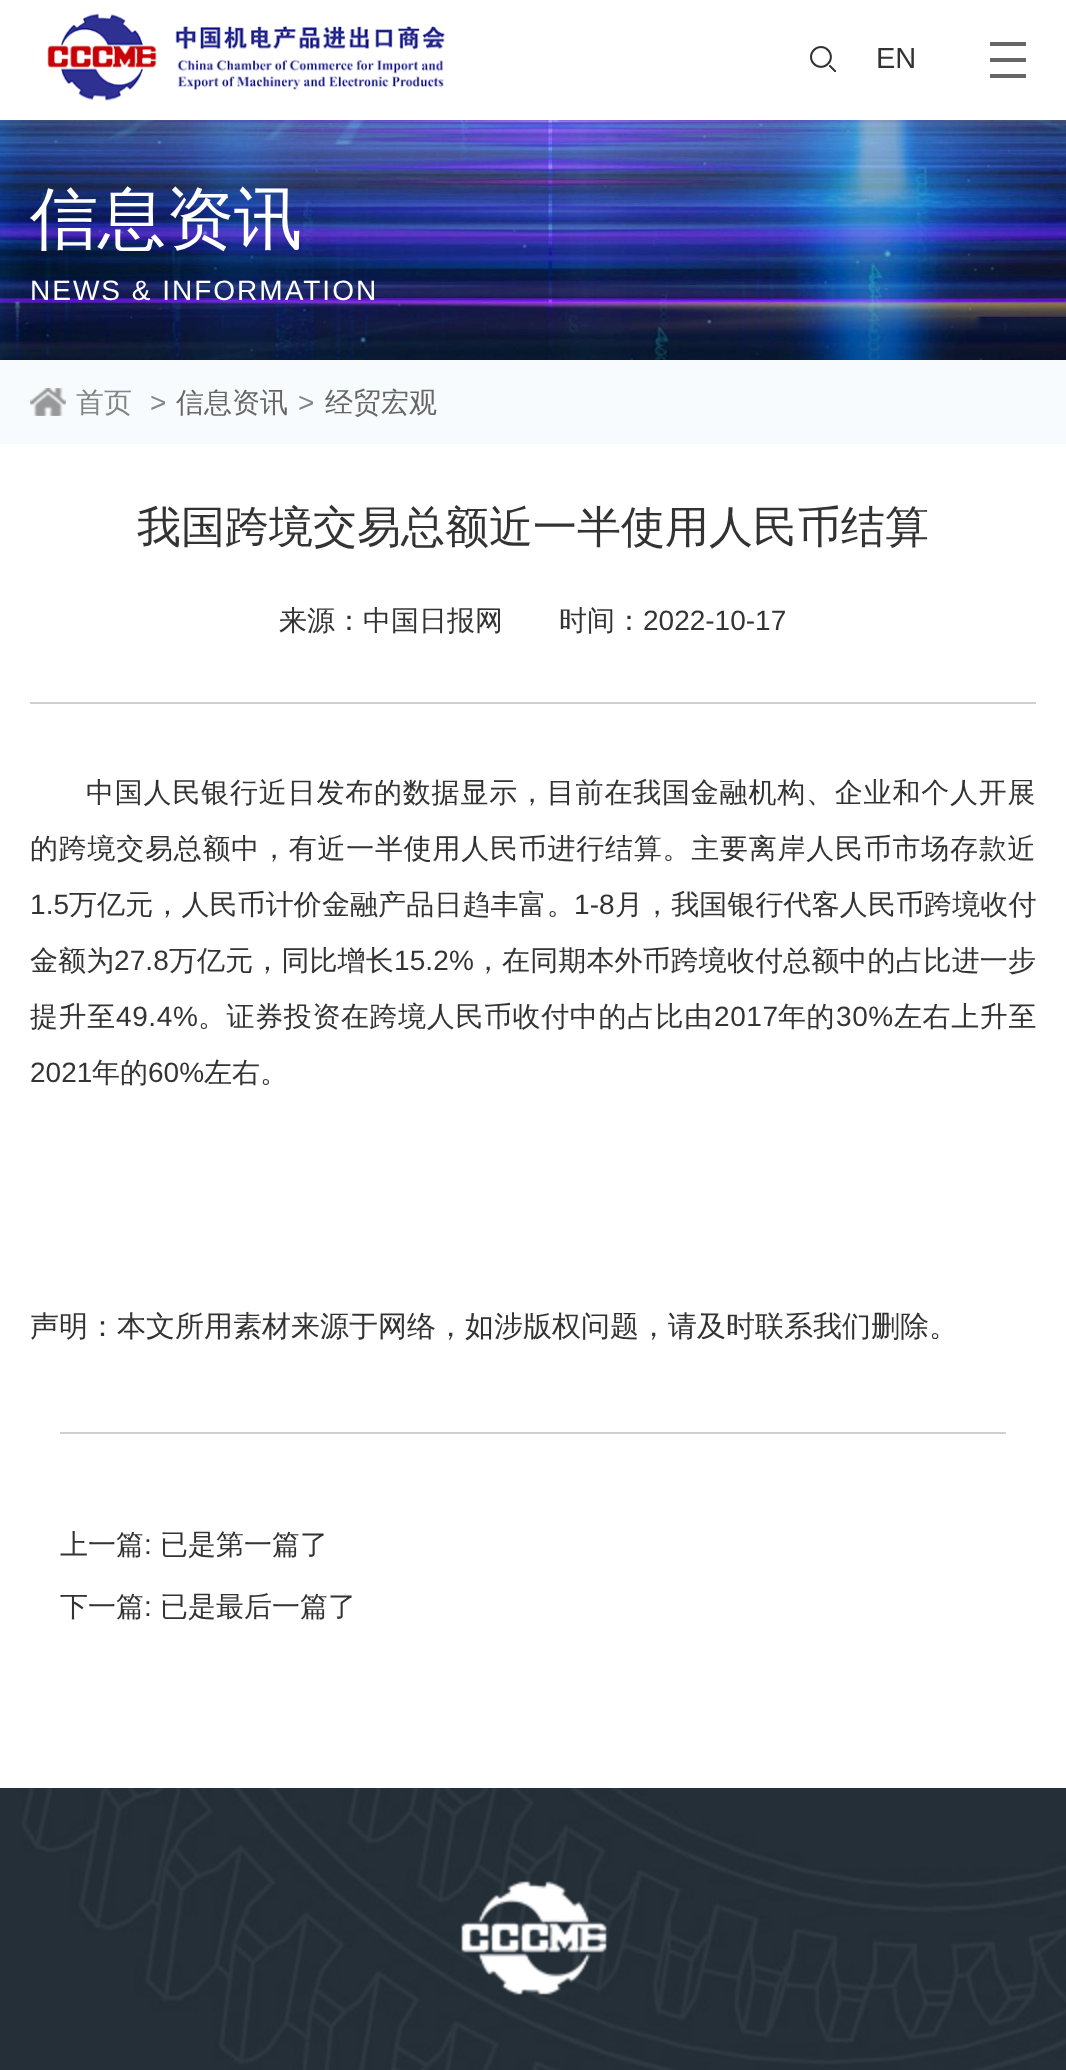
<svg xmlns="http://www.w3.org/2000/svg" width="1066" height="2070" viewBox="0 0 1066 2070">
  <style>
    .t1 { font: 29px Liberation Sans; fill: #333; }
    .t2 { font: 500 68px WenQuanYi Zen Hei; fill: #fff; }
    .t3 { font: 28px Liberation Sans; letter-spacing: 2px; fill: #fff; }
    .t4 { font: 500 28px WenQuanYi Zen Hei; fill: #838484; }
    .t5 { font: 28px Liberation Sans; fill: #838484; }
    .t6 { font: 500 28px WenQuanYi Zen Hei; fill: #666; }
    .t7 { font: 500 44px WenQuanYi Zen Hei; fill: #333; }
    .t8 { font: 500 28px WenQuanYi Zen Hei; fill: #333; }
    .t9 { font: 28px Liberation Sans; fill: #333; }
    .t10 { font: 500 28px WenQuanYi Zen Hei; letter-spacing: 0.8px; fill: #333; }
    .t11 { font: 500 28px WenQuanYi Zen Hei; letter-spacing: 0.75px; fill: #333; }
    .t12 { font: 28px Liberation Sans; letter-spacing: 0.1px; fill: #333; }
    .t13 { font: 500 28px WenQuanYi Zen Hei; letter-spacing: 0.1px; fill: #333; }
    .t14 { font: 500 28px WenQuanYi Zen Hei; letter-spacing: 0.6px; fill: #333; }
    .t15 { font: 28px Liberation Sans; letter-spacing: 0.6px; fill: #333; }
    .t16 { font: 500 29px WenQuanYi Zen Hei; fill: #333; }
  </style>
  <defs>
    <clipPath id="clip1"><rect x="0" y="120" width="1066" height="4"/></clipPath>
  </defs>
  <rect width="100%" height="100%" fill="#fff"/>
  <image x="0" y="120" width="1066" height="240" href="images/3.png"/>
  <g clip-path="url(#clip1)">
    <rect x="0" y="0" width="1066" height="120" fill="#0000001a" filter="blur(5px)"/>
  </g>
  <image x="47" y="13" width="398" height="88" href="images/1.png"/>
  <image x="810" y="46" width="26" height="26" href="images/2.png"/>
  <text x="876" y="68" class="t1">EN</text>
  <rect x="990" y="42" width="36" height="4" fill="#666"/>
  <rect x="990" y="58" width="36" height="4" fill="#666"/>
  <rect x="990" y="74" width="36" height="4" fill="#666"/>
  <text x="30" y="242" class="t2">信息资讯</text>
  <text x="30" y="300" class="t3">NEWS &amp; INFORMATION</text>
  <rect x="0" y="360" width="1066" height="84" fill="#f8fbfd"/>
  <image x="30" y="388" width="36" height="28" href="images/4.png"/>
  <text x="76" y="412" class="t4">首页</text>
  <text x="150" y="412" class="t5">&gt;</text>
  <text x="176" y="412" class="t6">信息资讯</text>
  <text x="298" y="412" class="t5">&gt;</text>
  <text x="325" y="412" class="t6">经贸宏观</text>
  <text x="137" y="542" class="t7">我国跨境交易总额近一半使用人民币结算</text>
  <rect x="30" y="702" width="1006" height="2" fill="#d0d0d0"/>
  <text x="279" y="630" class="t8">来源：中国日报网</text>
  <text x="559" y="630" class="t8">时间：</text>
  <text x="643" y="630" class="t9">2022-10-17</text>
  <text x="86" y="802" class="t10">中国人民银行近日发布的数据显示，目前在我国金融机构、企业和个人开展</text>
  <text x="30" y="858" class="t11">的跨境交易总额中，有近一半使用人民币进行结算。主要离岸人民币市场存款近</text>
  <text x="30" y="914" class="t12">1.5</text>
  <text x="69" y="914" class="t13">万亿元，人民币计价金融产品日趋丰富。</text>
  <text x="574" y="914" class="t12">1-8</text>
  <text x="615" y="914" class="t13">月，我国银行代客人民币跨境收付</text>
  <text x="30" y="970" class="t13">金额为</text>
  <text x="114" y="970" class="t12">27.8</text>
  <text x="169" y="970" class="t13">万亿元，同比增长</text>
  <text x="394" y="970" class="t12">15.2%</text>
  <text x="474" y="970" class="t13">，在同期本外币跨境收付总额中的占比进一步</text>
  <text x="30" y="1026" class="t14">提升至</text>
  <text x="116" y="1026" class="t15">49.4%</text>
  <text x="198" y="1026" class="t14">。证券投资在跨境人民币收付中的占比由</text>
  <text x="714" y="1026" class="t15">2017</text>
  <text x="778" y="1026" class="t14">年的</text>
  <text x="836" y="1026" class="t15">30%</text>
  <text x="894" y="1026" class="t14">左右上升至</text>
  <text x="30" y="1082" class="t9">2021</text>
  <text x="92" y="1082" class="t8">年的</text>
  <text x="148" y="1082" class="t9">60%</text>
  <text x="204" y="1082" class="t8">左右。</text>
  <text x="30" y="1336" class="t16">声明：本文所用素材来源于网络，如涉版权问题，请及时联系我们删除。</text>
  <rect x="60" y="1432" width="946" height="2" fill="#d0d0d0"/>
  <text x="60" y="1554" class="t8">上一篇</text>
  <text x="144" y="1554" class="t9">:</text>
  <text x="160" y="1554" class="t8">已是第一篇了</text>
  <text x="60" y="1616" class="t8">下一篇</text>
  <text x="144" y="1616" class="t9">:</text>
  <text x="160" y="1616" class="t8">已是最后一篇了</text>
  <rect x="0" y="1788" width="21" height="282" fill="#242f37"/>
  <image x="21" y="1788" width="1045" height="282" href="images/5.png"/>
  <image x="461" y="1881" width="146" height="114" href="images/6.png"/>
</svg>
